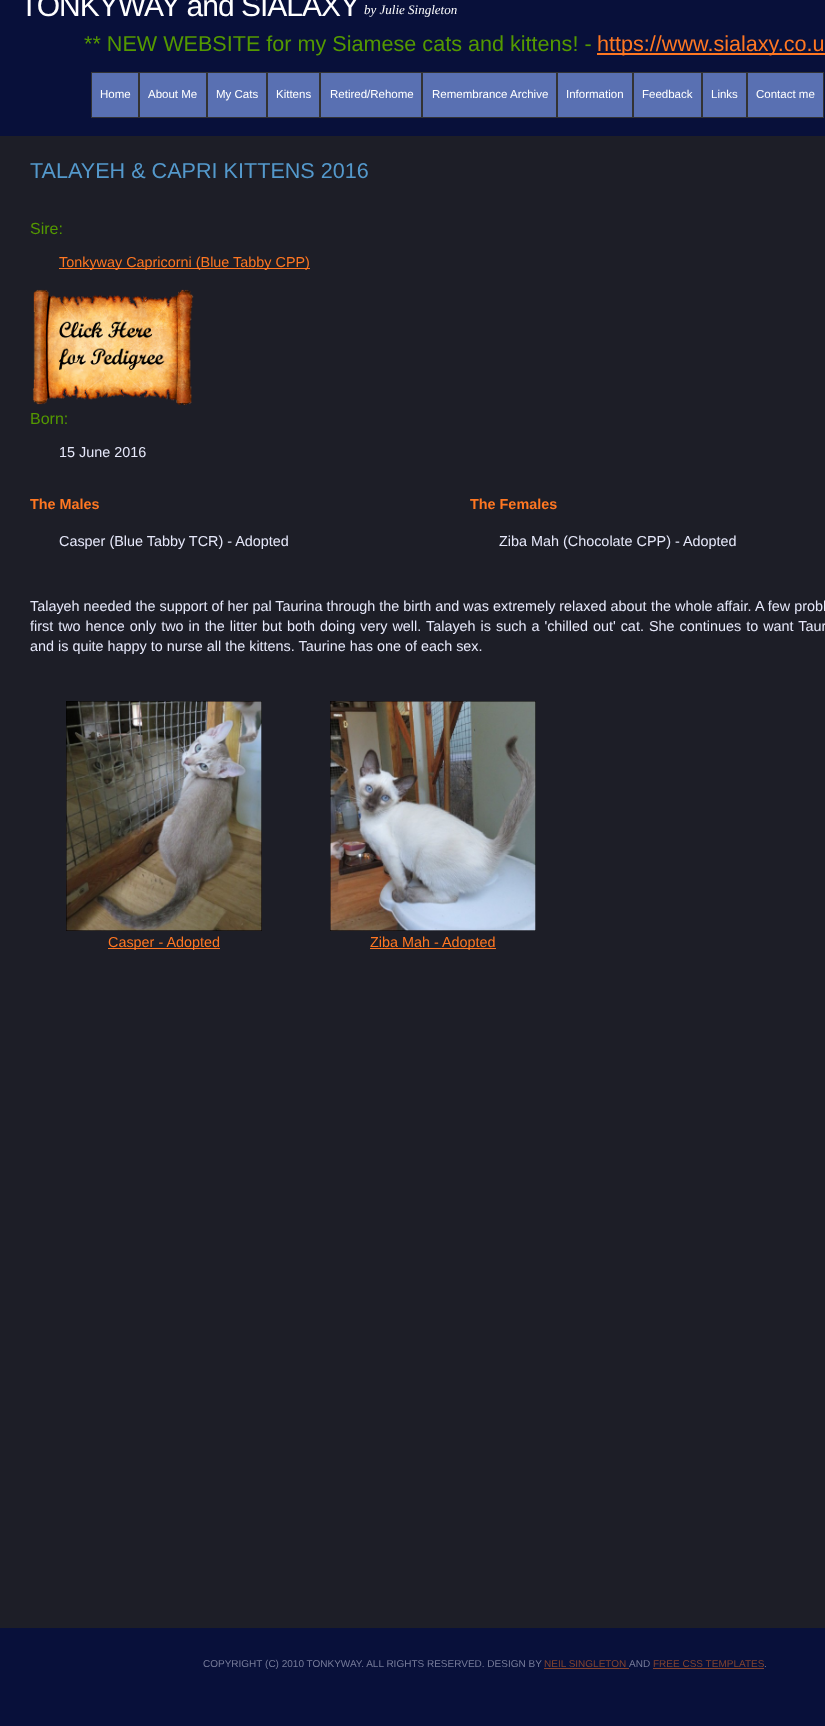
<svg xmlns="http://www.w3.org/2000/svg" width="825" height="1726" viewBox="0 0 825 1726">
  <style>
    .t1 { font: 30px Liberation Sans; letter-spacing: -1px; fill: #fff; }
    .t2 { font: italic 13px Liberation Serif; fill: #fff; }
    .t3 { font: 21.6px Liberation Sans; fill: #549900; }
    .t4 { font: 21.6px Liberation Sans; fill: #f72; }
    .t5 { font: 11.5px Liberation Sans; fill: #fff; }
    .t6 { font: 21.6px Liberation Sans; fill: #5499cc; }
    .t7 { font: 16px Liberation Sans; fill: #549900; }
    .t8 { font: 14.4px Liberation Sans; fill: #f72; }
    .t9 { font: 14.4px Liberation Sans; fill: #e6e8fa; }
    .t10 { font: bold 14.4px Liberation Sans; fill: #f72; }
    .t11 { font: 10px Liberation Sans; fill: #777c9a; }
    .t12 { font: 10px Liberation Sans; fill: #84442e; }
  </style>
  <rect width="100%" height="100%" fill="#08103a"/>
  <text x="20" y="16" class="t1">TONKYWAY and SIALAXY</text>
  <text x="364" y="14" class="t2">by Julie Singleton</text>
  <text x="84" y="51" class="t3">** NEW WEBSITE for my Siamese cats and kittens! -</text>
  <rect x="597" y="53" width="228" height="2" fill="#f72"/>
  <text x="597" y="51" class="t4">https://www.sialaxy.co.u</text>
  <rect x="91.5" y="72.5" width="47" height="45" fill="#5970b2" stroke="#333"/>
  <text x="100" y="98" class="t5">Home</text>
  <rect x="139.5" y="72.5" width="67" height="45" fill="#5970b2" stroke="#333"/>
  <text x="148" y="98" class="t5">About Me</text>
  <rect x="207.5" y="72.5" width="59" height="45" fill="#5970b2" stroke="#333"/>
  <text x="216" y="98" class="t5">My Cats</text>
  <rect x="267.5" y="72.5" width="52" height="45" fill="#5970b2" stroke="#333"/>
  <text x="276" y="98" class="t5">Kittens</text>
  <rect x="320.5" y="72.5" width="101" height="45" fill="#5970b2" stroke="#333"/>
  <text x="330" y="98" class="t5">Retired/Rehome</text>
  <rect x="422.5" y="72.5" width="134" height="45" fill="#5970b2" stroke="#333"/>
  <text x="432" y="98" class="t5">Remembrance Archive</text>
  <rect x="557.5" y="72.5" width="75" height="45" fill="#5970b2" stroke="#333"/>
  <text x="566" y="98" class="t5">Information</text>
  <rect x="633.5" y="72.5" width="68" height="45" fill="#5970b2" stroke="#333"/>
  <text x="642" y="98" class="t5">Feedback</text>
  <rect x="702.5" y="72.5" width="44" height="45" fill="#5970b2" stroke="#333"/>
  <text x="711" y="98" class="t5">Links</text>
  <rect x="747.5" y="72.5" width="76" height="45" fill="#5970b2" stroke="#333"/>
  <text x="756" y="98" class="t5">Contact me</text>
  <rect x="0" y="136" width="825" height="1492" fill="#1d1e27"/>
  <text x="30" y="178" class="t6">TALAYEH &amp; CAPRI KITTENS 2016</text>
  <text x="30" y="234" class="t7">Sire:</text>
  <rect x="59" y="268" width="251" height="1" fill="#f72"/>
  <text x="59" y="267" class="t8">Tonkyway Capricorni (Blue Tabby CPP)</text>
  <image x="32" y="289" width="162" height="116" href="images/1.png"/>
  <text x="30" y="424" class="t7">Born:</text>
  <text x="59" y="457" class="t9">15 June 2016</text>
  <text x="30" y="509" class="t10">The Males</text>
  <text x="59" y="546" class="t9">Casper (Blue Tabby TCR) - Adopted</text>
  <text x="470" y="509" class="t10">The Females</text>
  <text x="499" y="546" class="t9">Ziba Mah (Chocolate CPP) - Adopted</text>
  <text x="30" y="611" class="t9">Talayeh needed the support of her pal Taurina through the birth and was extremely relaxed about</text>
  <text x="651" y="611" class="t9">the whole affair.</text>
  <text x="755" y="611" class="t9">A few probl</text>
  <text x="30" y="631" word-spacing="1" class="t9">first two hence only two in the litter but both</text>
  <text x="320" y="631" word-spacing="1" class="t9">doing very well.</text>
  <text x="426" y="631" word-spacing="1" class="t9">Talayeh is such a 'chilled out' cat.</text>
  <text x="649" y="631" word-spacing="1" class="t9">She continues to want Taur</text>
  <text x="30" y="651" class="t9">and is quite happy to nurse all the kittens. Taurine has one of each sex.</text>
  <image x="66" y="701" width="196" height="230" href="images/2.png"/>
  <rect x="108" y="948" width="112" height="1" fill="#f72"/>
  <text x="108" y="947" class="t8">Casper - Adopted</text>
  <image x="330" y="701" width="206" height="230" href="images/3.png"/>
  <rect x="370" y="948" width="126" height="1" fill="#f72"/>
  <text x="370" y="947" class="t8">Ziba Mah - Adopted</text>
  <text x="203" y="1667" class="t11">COPYRIGHT (C) 2010 TONKYWAY. ALL RIGHTS RESERVED. DESIGN BY</text>
  <text x="544" y="1667" class="t12">NEIL SINGLETON</text>
  <rect x="544" y="1668" width="85" height="1" fill="#84442e"/>
  <text x="629" y="1667" class="t11">AND</text>
  <text x="653" y="1667" class="t12">FREE CSS TEMPLATES</text>
  <rect x="653" y="1668" width="111" height="1" fill="#84442e"/>
  <text x="764" y="1667" class="t11">.</text>
</svg>
